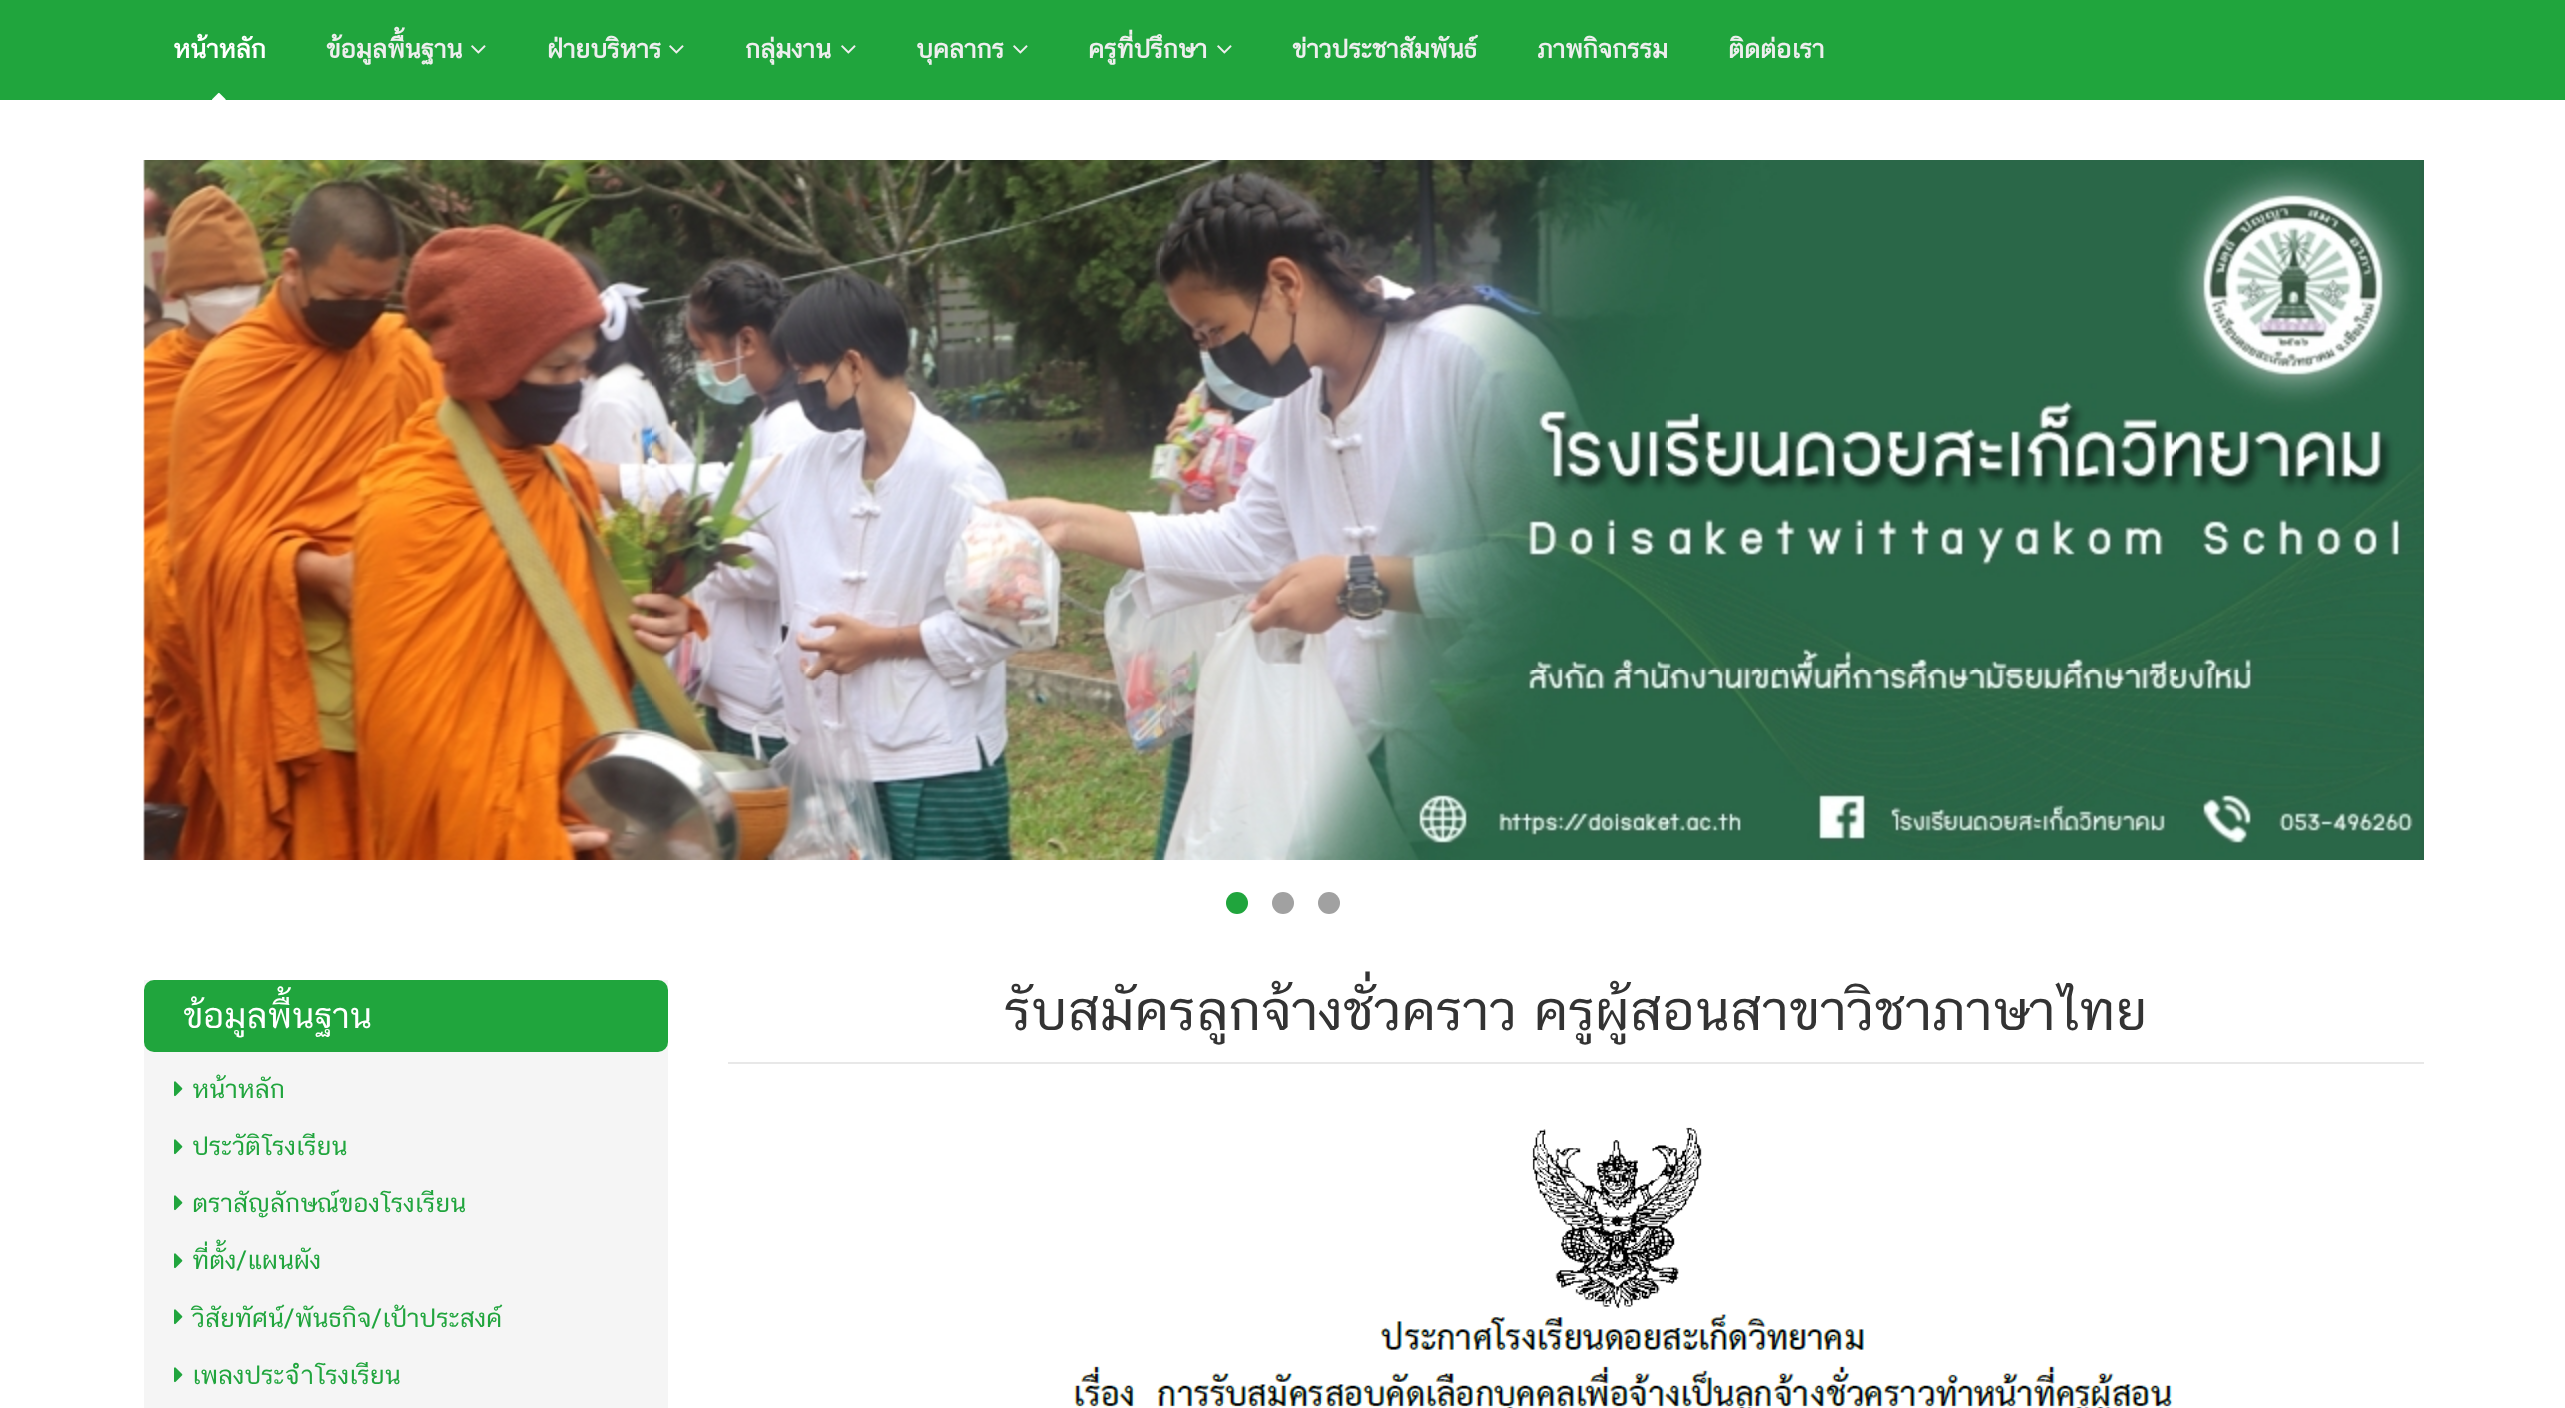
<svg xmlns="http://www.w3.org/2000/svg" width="2565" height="1408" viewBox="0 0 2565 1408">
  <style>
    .t1 { font: bold 26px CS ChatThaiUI; fill: #fff; }
    .t2 { font: bold 26px CS ChatThaiUI; fill: #eee; }
    .t3 { font: 36px CS ChatThaiUI; fill: #fff; }
    .t4 { font: 26px CS ChatThaiUI; fill: #20a53d; }
    .t5 { font: 56px CS ChatThaiUI; fill: #333; }
  </style>
  <rect width="100%" height="100%" fill="#fff"/>
  <rect x="0" y="0" width="2565" height="100" fill="#20a53d"/>
  <text x="173" y="58" class="t1">หน้าหลัก</text>
  <image x="212" y="92" width="14" height="8" href="images/1.png"/>
  <text x="326" y="58" class="t2">ข้อมูลพื้นฐาน</text>
  <image x="471" y="45" width="15" height="9" href="images/2.png"/>
  <text x="547" y="58" class="t2">ฝ่ายบริหาร</text>
  <image x="669" y="45" width="15" height="9" href="images/2.png"/>
  <text x="745" y="58" class="t2">กลุ่มงาน</text>
  <image x="841" y="45" width="15" height="9" href="images/2.png"/>
  <text x="916" y="58" class="t2">บุคลากร</text>
  <image x="1013" y="45" width="15" height="9" href="images/2.png"/>
  <text x="1088" y="58" class="t2">ครูที่ปรึกษา</text>
  <image x="1217" y="45" width="15" height="9" href="images/2.png"/>
  <text x="1292" y="58" class="t2">ข่าวประชาสัมพันธ์</text>
  <text x="1537" y="58" class="t2">ภาพกิจกรรม</text>
  <text x="1728" y="58" class="t2">ติดต่อเรา</text>
  <image x="143" y="160" width="2281" height="700" href="images/3.png"/>
  <circle cx="1237" cy="903" r="11" fill="#20a53d"/>
  <circle cx="1283" cy="903" r="11" fill="#a1a1a1"/>
  <circle cx="1329" cy="903" r="11" fill="#a1a1a1"/>
  <rect x="144" y="980" width="524" height="428" fill="#f5f5f5"/>
  <rect x="144" y="980" width="524" height="72" rx="10" fill="#20a53d"/>
  <text x="183" y="1028" class="t3">ข้อมูลพื้นฐาน</text>
  <image x="174" y="1081" width="9" height="16" href="images/4.png"/>
  <text x="192" y="1098" class="t4">หน้าหลัก</text>
  <image x="174" y="1139" width="9" height="16" href="images/4.png"/>
  <text x="192" y="1155" class="t4">ประวัติโรงเรียน</text>
  <image x="174" y="1195" width="9" height="16" href="images/4.png"/>
  <text x="192" y="1212" class="t4">ตราสัญลักษณ์ของโรงเรียน</text>
  <image x="174" y="1253" width="9" height="16" href="images/4.png"/>
  <text x="192" y="1269" class="t4">ที่ตั้ง/แผนผัง</text>
  <image x="174" y="1309" width="9" height="16" href="images/4.png"/>
  <text x="192" y="1327" class="t4">วิสัยทัศน์/พันธกิจ/เป้าประสงค์</text>
  <image x="174" y="1367" width="9" height="16" href="images/4.png"/>
  <text x="192" y="1384" class="t4">เพลงประจำโรงเรียน</text>
  <rect x="728" y="1062" width="1696" height="2" fill="#e8e8e8"/>
  <text x="1004" y="1030" class="t5">รับสมัครลูกจ้างชั่วคราว ครูผู้สอนสาขาวิชาภาษาไทย</text>
  <image x="1074" y="1127" width="1099" height="281" href="images/5.png"/>
</svg>
